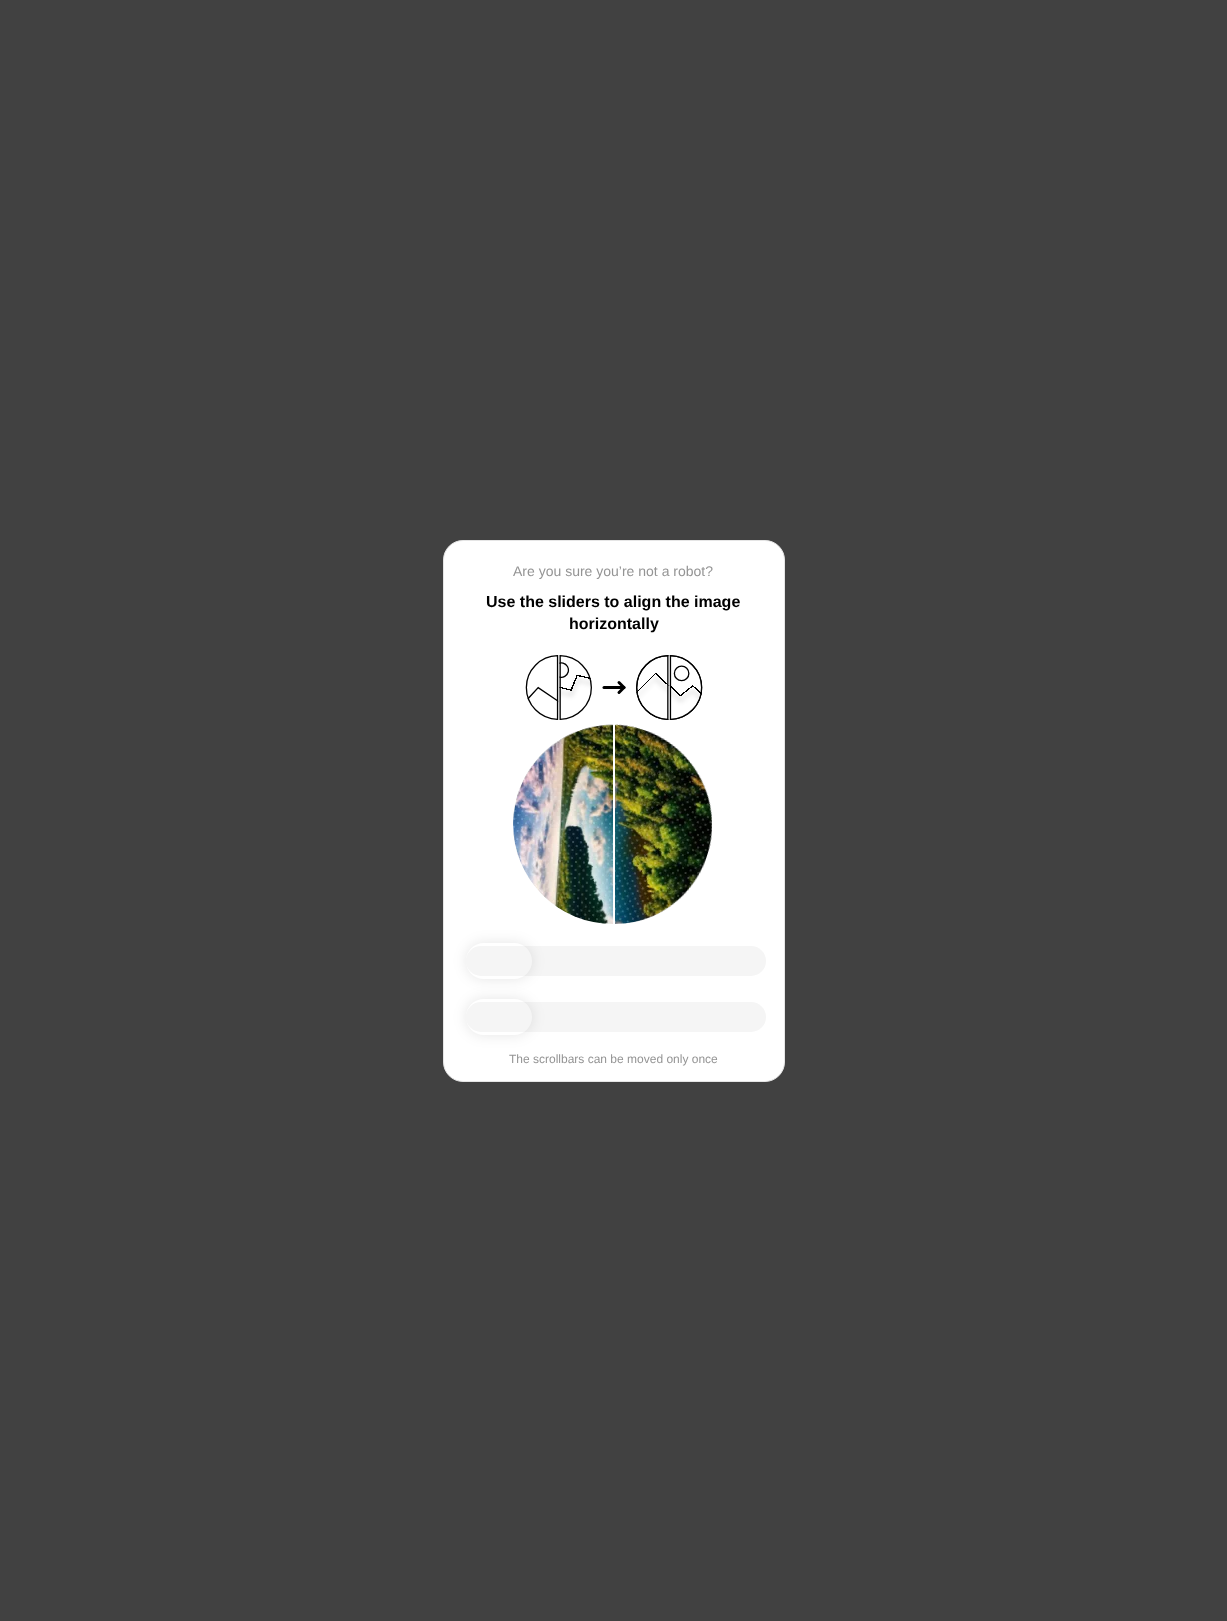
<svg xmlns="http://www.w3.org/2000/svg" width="1227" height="1621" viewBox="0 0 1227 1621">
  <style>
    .t1 { font: 14px Liberation Sans; fill: #949494; }
    .t2 { font: bold 16px Liberation Sans; fill: #000; }
    .t3 { font: 12px Liberation Sans; fill: #949494; }
  </style>
  <defs>
    <clipPath id="clip1"><path d="M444 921H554V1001H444ZM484 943H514C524 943 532 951 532 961C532 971 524 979 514 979H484C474 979 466 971 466 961C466 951 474 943 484 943Z" clip-rule="evenodd"/></clipPath>
    <clipPath id="clip2"><path d="M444 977H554V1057H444ZM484 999H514C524 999 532 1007 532 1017C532 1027 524 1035 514 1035H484C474 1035 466 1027 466 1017C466 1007 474 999 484 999Z" clip-rule="evenodd"/></clipPath>
  </defs>
  <rect width="100%" height="100%" fill="#414141"/>
  <rect x="443.5" y="540.5" width="341" height="541" rx="19.5" fill="#fff" stroke="#e5e5e5"/>
  <text x="513" y="576" class="t1">Are you sure you’re not a robot?</text>
  <text x="486" y="607" class="t2">Use the sliders to align the image</text>
  <text x="569" y="629" class="t2">horizontally</text>
  <image x="525" y="655" width="178" height="65" href="images/1.png"/>
  <image x="513" y="724" width="100" height="200" href="images/2.png"/>
  <image x="615" y="724" width="97" height="200" href="images/3.png"/>
  <rect x="466" y="946" width="300" height="30" rx="15" fill="#f5f5f5"/>
  <g clip-path="url(#clip1)">
    <rect x="466" y="943" width="66" height="36" rx="18" fill="#0000001a" filter="blur(7px)"/>
  </g>
  <rect x="466" y="1002" width="300" height="30" rx="15" fill="#f5f5f5"/>
  <g clip-path="url(#clip2)">
    <rect x="466" y="999" width="66" height="36" rx="18" fill="#0000001a" filter="blur(7px)"/>
  </g>
  <text x="509" y="1063" class="t3">The scrollbars can be moved only once</text>
</svg>
